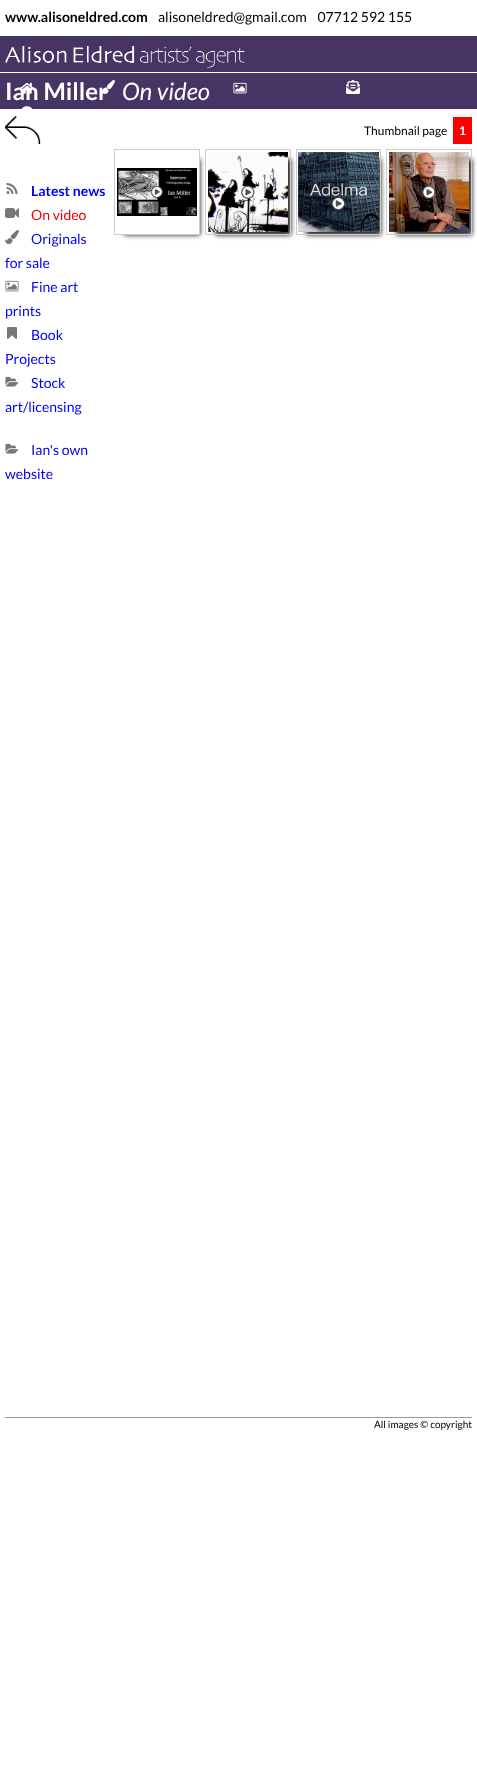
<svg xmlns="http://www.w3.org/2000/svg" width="477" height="1775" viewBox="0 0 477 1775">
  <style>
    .t1 { font: bold 14px Lato; fill: #000; }
    .t2 { font: 14px Lato; fill: #000; }
    .t3 { font: bold 24px Lato; fill: #fff; }
    .t4 { font: italic 24px Lato; fill: #fff; }
    .t5 { font: 12px Lato; fill: #000; }
    .t6 { font: bold 12px Lato; fill: #fff; }
    .t7 { font: bold 14px Lato; fill: #00e; }
    .t8 { font: 14px Lato; fill: #e00; }
    .t9 { font: 14px Lato; fill: #00e; }
    .t10 { font: 10px Lato; fill: #000; }
  </style>
  <defs>
    <clipPath id="clip1"><path d="M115 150H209V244H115ZM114 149H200V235H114Z" clip-rule="evenodd"/></clipPath>
  </defs>
  <rect width="100%" height="100%" fill="#fff"/>
  <text x="5" y="22" class="t1">www.alisoneldred.com</text>
  <text x="158" y="22" class="t2" xml:space="preserve">alisoneldred@gmail.com    07712 592 155</text>
  <rect x="0" y="36" width="477" height="36" fill="#453464"/>
  <image x="5" y="46" width="240" height="22" href="images/1.png"/>
  <rect x="0" y="73" width="477" height="36" fill="#453464"/>
  <text x="5" y="100" class="t3">Ian Miller</text>
  <image x="20" y="82" width="14" height="12" href="images/2.png"/>
  <image x="102" y="80" width="13" height="14" href="images/3.png"/>
  <image x="233" y="82" width="14" height="12" href="images/4.png"/>
  <image x="346" y="80" width="14" height="14" href="images/5.png"/>
  <image x="21" y="106" width="12" height="3" href="images/6.png"/>
  <text x="122" y="100" class="t4">On video</text>
  <image x="5" y="116" width="36" height="28" href="images/7.png"/>
  <text x="364" y="135" class="t5">Thumbnail page</text>
  <rect x="453" y="117" width="19" height="27" fill="#fb0000"/>
  <text x="459" y="135" class="t6">1</text>
  <image x="6" y="183" width="12" height="11" href="images/8.png"/>
  <text x="31" y="196" class="t7">Latest news</text>
  <image x="5" y="208" width="14" height="10" href="images/9.png"/>
  <text x="31" y="220" class="t8">On video</text>
  <image x="5" y="230" width="14" height="14" href="images/10.png"/>
  <text x="31" y="244" class="t9">Originals</text>
  <text x="5" y="268" class="t9">for sale</text>
  <image x="5" y="280" width="14" height="12" href="images/11.png"/>
  <text x="31" y="292" class="t9">Fine art</text>
  <text x="5" y="316" class="t9">prints</text>
  <image x="7" y="327" width="10" height="12" href="images/12.png"/>
  <text x="31" y="340" class="t9">Book</text>
  <text x="5" y="364" class="t9">Projects</text>
  <image x="5" y="376" width="14" height="11" href="images/13.png"/>
  <text x="31" y="388" class="t9">Stock</text>
  <text x="5" y="412" class="t9">art/licensing</text>
  <image x="5" y="443" width="14" height="11" href="images/13.png"/>
  <text x="31" y="455" class="t9">Ian's own</text>
  <text x="5" y="479" class="t9">website</text>
  <g clip-path="url(#clip1)">
    <rect x="124" y="159" width="76" height="76" fill="#1a1a1a" filter="blur(2.5px)"/>
  </g>
  <rect x="114.5" y="149.5" width="85" height="85" fill="none" stroke="#ccc"/>
  <image x="117" y="168" width="80" height="48" href="images/14.png"/>
  <rect x="215" y="159" width="76" height="76" fill="#1a1a1a" filter="blur(2.5px)"/>
  <rect x="205.5" y="149.5" width="85" height="85" fill="none" stroke="#ccc"/>
  <image x="208" y="152" width="80" height="80" href="images/15.png"/>
  <rect x="306" y="159" width="75" height="76" fill="#1a1a1a" filter="blur(2.5px)"/>
  <rect x="296.5" y="149.5" width="84" height="85" fill="none" stroke="#ccc"/>
  <image x="298" y="152" width="81" height="80" href="images/16.png"/>
  <rect x="396" y="159" width="76" height="76" fill="#1a1a1a" filter="blur(2.5px)"/>
  <rect x="386.5" y="149.5" width="85" height="85" fill="none" stroke="#ccc"/>
  <image x="389" y="152" width="80" height="80" href="images/17.png"/>
  <rect x="5" y="1417" width="467" height="1" fill="#999"/>
  <text x="374" y="1428" class="t10">All images © copyright</text>
</svg>
